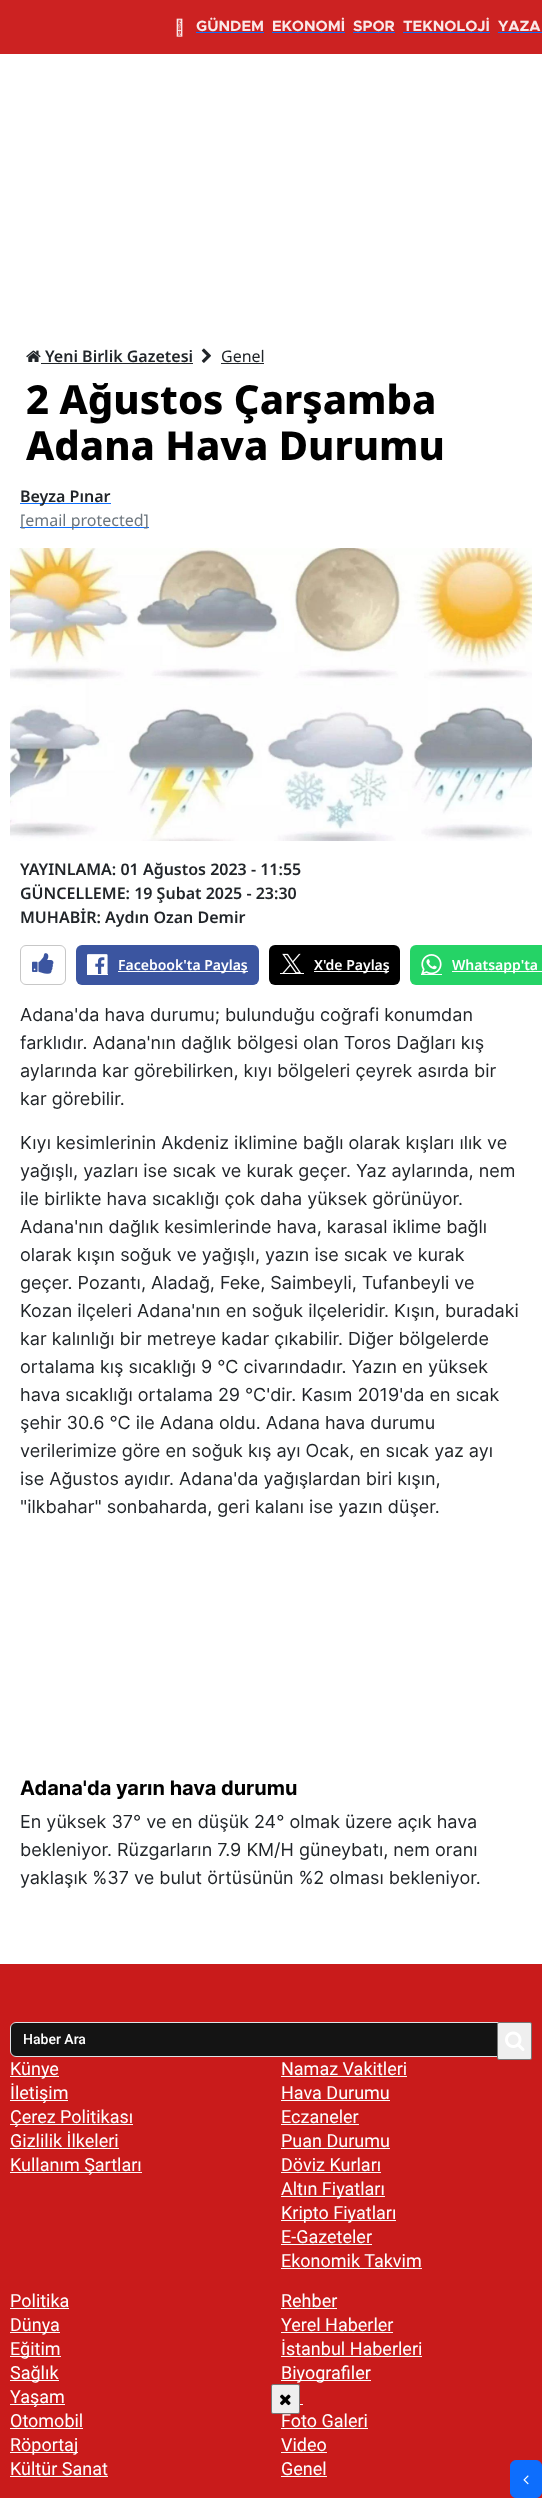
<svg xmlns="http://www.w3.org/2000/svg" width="542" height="2498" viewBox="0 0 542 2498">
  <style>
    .t1 { font: bold 15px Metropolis; fill: #fae8e8; }
    .t2 { font: 600 16px Noto Sans; fill: #212529; }
    .t3 { font: 16px Noto Sans; fill: #212529; }
    .t4 { font: 800 40px Noto Sans; fill: #000; }
    .t5 { font: 16px Noto Sans; fill: #6c757d; }
    .t6 { font: 600 14px Noto Sans; fill: #fff; }
    .t7 { font: 18px Inter; fill: #212529; }
    .t8 { font: bold 20px Inter; fill: #000; }
    .t9 { font: 500 14px Roboto; fill: #fff; }
    .t10 { font: 18px Roboto; fill: #fff; }
  </style>
  <rect width="100%" height="100%" fill="#fff"/>
  <rect x="0" y="0" width="542" height="54" fill="#c22"/>
  <image x="176" y="18" width="7" height="19" href="images/1.png"/>
  <text x="196" y="31" class="t1">GÜNDEM</text>
  <rect x="196" y="32" width="68" height="1" fill="#0d6efd"/>
  <text x="272" y="31" class="t1">EKONOMİ</text>
  <rect x="272" y="32" width="73" height="1" fill="#0d6efd"/>
  <text x="353" y="31" class="t1">SPOR</text>
  <rect x="353" y="32" width="42" height="1" fill="#0d6efd"/>
  <text x="403" y="31" class="t1">TEKNOLOJİ</text>
  <rect x="403" y="32" width="87" height="1" fill="#0d6efd"/>
  <text x="498" y="31" class="t1">YAZA</text>
  <rect x="498" y="32" width="44" height="1" fill="#0d6efd"/>
  <image x="26" y="350" width="15" height="12" href="images/2.png"/>
  <text x="45" y="362" class="t2">Yeni Birlik Gazetesi</text>
  <rect x="41" y="363" width="152" height="1" fill="#212529"/>
  <image x="201" y="348" width="10" height="15" href="images/3.png"/>
  <text x="221" y="362" class="t3">Genel</text>
  <rect x="221" y="363" width="43" height="1" fill="#212529"/>
  <text x="26" y="414" class="t4">2 Ağustos Çarşamba</text>
  <text x="26" y="460" class="t4">Adana Hava Durumu</text>
  <rect x="20" y="503" width="91" height="1" fill="#0d6efd"/>
  <text x="20" y="502" class="t2">Beyza Pınar</text>
  <rect x="20" y="527" width="129" height="1" fill="#0d6efd"/>
  <text x="20" y="526" class="t5">[email protected]</text>
  <image x="10" y="548" width="522" height="293" href="images/4.png"/>
  <text x="20" y="875" class="t2">YAYINLAMA: 01 Ağustos 2023 - 11:55</text>
  <text x="20" y="899" class="t2">GÜNCELLEME: 19 Şubat 2025 - 23:30</text>
  <text x="20" y="923" class="t2">MUHABİR: Aydın Ozan Demir</text>
  <rect x="20.5" y="945.5" width="45" height="39" rx="5.5" fill="none" stroke="#c7c7c7"/>
  <image x="32" y="953" width="22" height="21" href="images/5.png"/>
  <rect x="76" y="945" width="183" height="40" rx="6" fill="#3b55a0"/>
  <image x="87" y="954" width="21" height="20" href="images/6.png"/>
  <rect x="87" y="974" width="21" height="1" fill="#fff"/>
  <rect x="118" y="971" width="130" height="1" fill="#fff"/>
  <text x="118" y="970" class="t6">Facebook'ta Paylaş</text>
  <rect x="269" y="945" width="131" height="40" rx="6" fill="#000"/>
  <image x="282" y="953" width="19" height="20" href="images/7.png"/>
  <rect x="280" y="973" width="24" height="1" fill="#fff"/>
  <rect x="314" y="971" width="75" height="1" fill="#fff"/>
  <text x="314" y="970" class="t6">X'de Paylaş</text>
  <rect x="410" y="945" width="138" height="40" rx="6" fill="#25d366"/>
  <image x="421" y="954" width="21" height="20" href="images/8.png"/>
  <rect x="421" y="974" width="21" height="1" fill="#fff"/>
  <rect x="452" y="971" width="90" height="1" fill="#fff"/>
  <text x="452" y="970" class="t6">Whatsapp'ta</text>
  <text x="20" y="1021" class="t7">Adana'da hava durumu; bulunduğu coğrafi konumdan</text>
  <text x="20" y="1049" class="t7">farklıdır. Adana'nın dağlık bölgesi olan Toros Dağları kış</text>
  <text x="20" y="1077" class="t7">aylarında kar görebilirken, kıyı bölgeleri çeyrek asırda bir</text>
  <text x="20" y="1105" class="t7">kar görebilir.</text>
  <text x="20" y="1149" class="t7">Kıyı kesimlerinin Akdeniz iklimine bağlı olarak kışları ılık ve</text>
  <text x="20" y="1177" class="t7">yağışlı, yazları ise sıcak ve kurak geçer. Yaz aylarında, nem</text>
  <text x="20" y="1205" class="t7">ile birlikte hava sıcaklığı çok daha yüksek görünüyor.</text>
  <text x="20" y="1233" class="t7">Adana'nın dağlık kesimlerinde hava, karasal iklime bağlı</text>
  <text x="20" y="1261" class="t7">olarak kışın soğuk ve yağışlı, yazın ise sıcak ve kurak</text>
  <text x="20" y="1289" class="t7">geçer. Pozantı, Aladağ, Feke, Saimbeyli, Tufanbeyli ve</text>
  <text x="20" y="1317" class="t7">Kozan ilçeleri Adana'nın en soğuk ilçeleridir. Kışın, buradaki</text>
  <text x="20" y="1345" class="t7">kar kalınlığı bir metreye kadar çıkabilir. Diğer bölgelerde</text>
  <text x="20" y="1373" class="t7">ortalama kış sıcaklığı 9 °C civarındadır. Yazın en yüksek</text>
  <text x="20" y="1401" class="t7">hava sıcaklığı ortalama 29 °C'dir. Kasım 2019'da en sıcak</text>
  <text x="20" y="1429" class="t7">şehir 30.6 °C ile Adana oldu. Adana hava durumu</text>
  <text x="20" y="1457" class="t7">verilerimize göre en soğuk kış ayı Ocak, en sıcak yaz ayı</text>
  <text x="20" y="1485" class="t7">ise Ağustos ayıdır. Adana'da yağışlardan biri kışın,</text>
  <text x="20" y="1513" class="t7">"ilkbahar" sonbaharda, geri kalanı ise yazın düşer.</text>
  <text x="20" y="1795" class="t8">Adana'da yarın hava durumu</text>
  <text x="20" y="1828" class="t7">En yüksek 37° ve en düşük 24° olmak üzere açık hava</text>
  <text x="20" y="1856" class="t7">bekleniyor. Rüzgarların 7.9 KM/H güneybatı, nem oranı</text>
  <text x="20" y="1884" class="t7">yaklaşık %37 ve bulut örtüsünün %2 olması bekleniyor.</text>
  <rect x="0" y="1964" width="542" height="534" fill="#c91b1b"/>
  <rect x="10.5" y="2022.5" width="521" height="34" rx="5.5" fill="#141414" stroke="#dee2e6"/>
  <text x="23" y="2044" class="t9">Haber Ara</text>
  <rect x="497.5" y="2022.5" width="34" height="37" rx="1.5" fill="#efefef" stroke="#767676"/>
  <image x="505" y="2031" width="20" height="20" href="images/9.png"/>
  <rect x="10" y="2076" width="49" height="1" fill="#fff"/>
  <text x="10" y="2075" class="t10">Künye</text>
  <rect x="10" y="2100" width="58" height="1" fill="#fff"/>
  <text x="10" y="2099" class="t10">İletişim</text>
  <rect x="10" y="2124" width="123" height="1" fill="#fff"/>
  <text x="10" y="2123" class="t10">Çerez Politikası</text>
  <text x="10" y="2147" class="t10">Gizlilik İlkeleri</text>
  <rect x="10" y="2148" width="109" height="1" fill="#fff"/>
  <rect x="10" y="2172" width="132" height="1" fill="#fff"/>
  <text x="10" y="2171" class="t10">Kullanım Şartları</text>
  <text x="281" y="2075" class="t10">Namaz Vakitleri</text>
  <rect x="281" y="2076" width="126" height="1" fill="#fff"/>
  <text x="281" y="2099" class="t10">Hava Durumu</text>
  <rect x="281" y="2100" width="109" height="1" fill="#fff"/>
  <text x="281" y="2123" class="t10">Eczaneler</text>
  <rect x="281" y="2124" width="78" height="1" fill="#fff"/>
  <text x="281" y="2147" class="t10">Puan Durumu</text>
  <rect x="281" y="2148" width="109" height="1" fill="#fff"/>
  <text x="281" y="2171" class="t10">Döviz Kurları</text>
  <rect x="281" y="2172" width="100" height="1" fill="#fff"/>
  <rect x="281" y="2196" width="104" height="1" fill="#fff"/>
  <text x="281" y="2195" class="t10">Altın Fiyatları</text>
  <rect x="281" y="2220" width="115" height="1" fill="#fff"/>
  <text x="281" y="2219" class="t10">Kripto Fiyatları</text>
  <text x="281" y="2243" class="t10">E-Gazeteler</text>
  <rect x="281" y="2244" width="91" height="1" fill="#fff"/>
  <text x="281" y="2267" class="t10">Ekonomik Takvim</text>
  <rect x="281" y="2268" width="141" height="1" fill="#fff"/>
  <text x="10" y="2307" class="t10">Politika</text>
  <rect x="10" y="2308" width="59" height="1" fill="#fff"/>
  <rect x="10" y="2332" width="50" height="1" fill="#fff"/>
  <text x="10" y="2331" class="t10">Dünya</text>
  <rect x="10" y="2356" width="51" height="1" fill="#fff"/>
  <text x="10" y="2355" class="t10">Eğitim</text>
  <rect x="10" y="2380" width="49" height="1" fill="#fff"/>
  <text x="10" y="2379" class="t10">Sağlık</text>
  <rect x="10" y="2404" width="55" height="1" fill="#fff"/>
  <text x="10" y="2403" class="t10">Yaşam</text>
  <text x="10" y="2427" class="t10">Otomobil</text>
  <rect x="10" y="2428" width="73" height="1" fill="#fff"/>
  <rect x="10" y="2452" width="68" height="1" fill="#fff"/>
  <text x="10" y="2451" class="t10">Röportaj</text>
  <text x="10" y="2475" class="t10">Kültür Sanat</text>
  <rect x="10" y="2476" width="98" height="1" fill="#fff"/>
  <text x="281" y="2307" class="t10">Rehber</text>
  <rect x="281" y="2308" width="56" height="1" fill="#fff"/>
  <text x="281" y="2331" class="t10">Yerel Haberler</text>
  <rect x="281" y="2332" width="112" height="1" fill="#fff"/>
  <text x="281" y="2355" class="t10">İstanbul Haberleri</text>
  <rect x="281" y="2356" width="141" height="1" fill="#fff"/>
  <rect x="281" y="2380" width="90" height="1" fill="#fff"/>
  <text x="281" y="2379" class="t10">Biyografiler</text>
  <rect x="300" y="2404" width="3" height="1" fill="#fff"/>
  <text x="281" y="2427" class="t10">Foto Galeri</text>
  <rect x="281" y="2428" width="87" height="1" fill="#fff"/>
  <text x="281" y="2451" class="t10">Video</text>
  <rect x="281" y="2452" width="46" height="1" fill="#fff"/>
  <text x="281" y="2475" class="t10">Genel</text>
  <rect x="281" y="2476" width="46" height="1" fill="#fff"/>
  <rect x="271.5" y="2384.5" width="28" height="29" rx="1.5" fill="#efefef" stroke="#767676"/>
  <image x="280" y="2394" width="11" height="12" href="images/10.png"/>
  <rect x="510.5" y="2460.5" width="31" height="37" rx="5.5" fill="#0d6efd" stroke="#0d6efd"/>
  <image x="523" y="2475" width="6" height="10" href="images/11.png"/>
</svg>
